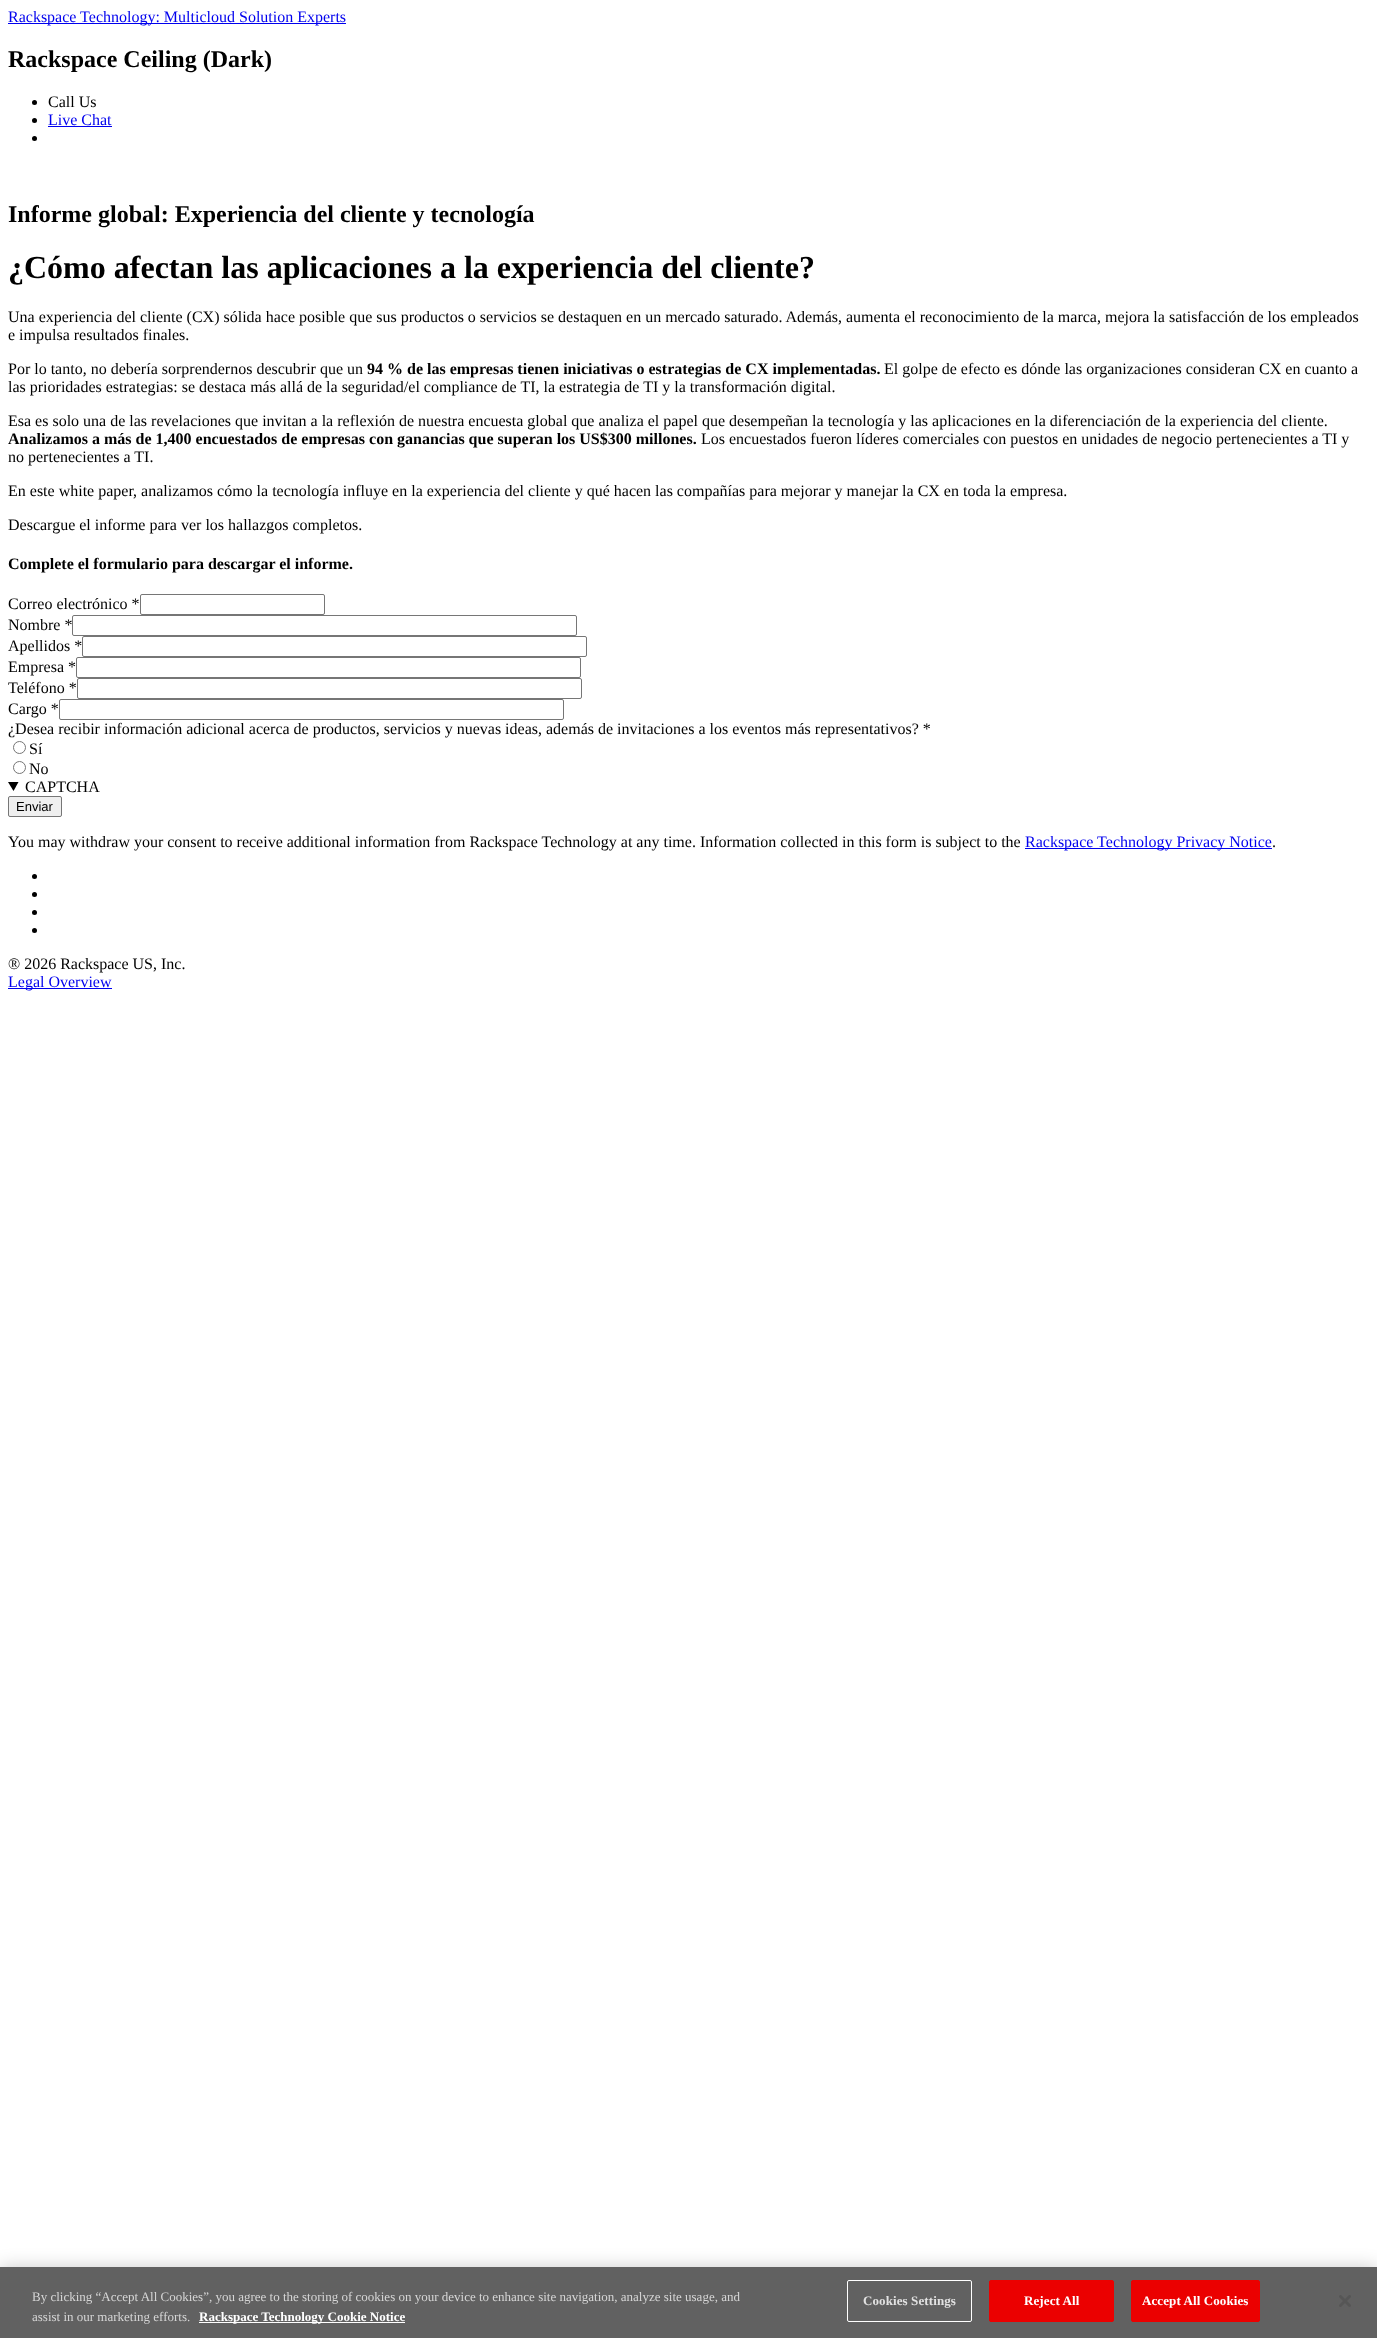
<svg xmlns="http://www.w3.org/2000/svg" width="1377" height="2338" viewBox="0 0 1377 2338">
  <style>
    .t1 { font: 16px Liberation Serif; fill: #00e; }
    .t2 { font: bold 24px Liberation Serif; fill: #000; }
    .t3 { font: 16px Liberation Serif; fill: #000; }
    .t4 { font: bold 32px Liberation Serif; fill: #000; }
    .t5 { font: bold 16px Liberation Serif; fill: #000; }
    .t6 { font: 13px Liberation Sans; fill: #000; }
    .t7 { font: 13px Liberation Serif; fill: #d6d6d6; }
    .t8 { font: bold 13px Liberation Serif; fill: #fff; }
    .t9 { font: bold 13px Liberation Serif; letter-spacing: 0.1px; fill: #e2e2e2; }
    .t10 { font: bold 13px Liberation Serif; letter-spacing: 0.1px; fill: #fff; }
  </style>
  <rect width="100%" height="100%" fill="#fff"/>
  <rect x="8" y="23" width="338" height="1" fill="#00e"/>
  <text x="8" y="22" class="t1">Rackspace Technology: Multicloud Solution Experts</text>
  <text x="8" y="67" class="t2">Rackspace Ceiling (Dark)</text>
  <circle cx="34.5" cy="102.5" r="2.5" fill="#000"/>
  <text x="48" y="107" class="t3">Call Us</text>
  <circle cx="34.5" cy="120.5" r="2.5" fill="#000"/>
  <text x="48" y="125" class="t1">Live Chat</text>
  <rect x="48" y="126" width="64" height="1" fill="#00e"/>
  <circle cx="34.5" cy="138.5" r="2.5" fill="#000"/>
  <text x="8" y="222" class="t2">Informe global: Experiencia del cliente y tecnología</text>
  <text x="8" y="278" class="t4">¿Cómo afectan las aplicaciones a la experiencia del cliente?</text>
  <text x="8" y="322" class="t3">Una experiencia del cliente (CX) sólida hace posible que sus productos o servicios se destaquen en un mercado saturado. Además, aumenta el reconocimiento de la marca, mejora la satisfacción de los empleados</text>
  <text x="8" y="340" class="t3">e impulsa resultados finales.</text>
  <text x="8" y="374" class="t3">Por lo tanto, no debería sorprendernos descubrir que un</text>
  <text x="367" y="374" class="t5">94 % de las empresas tienen iniciativas o estrategias de CX implementadas.</text>
  <text x="884" y="374" class="t3">El golpe de efecto es dónde las organizaciones consideran CX en cuanto a</text>
  <text x="8" y="392" class="t3">las prioridades estrategias: se destaca más allá de la seguridad/el compliance de TI, la estrategia de TI y la transformación digital.</text>
  <text x="8" y="426" class="t3">Esa es solo una de las revelaciones que invitan a la reflexión de nuestra encuesta global que analiza el papel que desempeñan la tecnología y las aplicaciones en la diferenciación de la experiencia del cliente.</text>
  <text x="8" y="444" class="t5">Analizamos a más de 1,400 encuestados de empresas con ganancias que superan los US$300 millones.</text>
  <text x="701" y="444" class="t3">Los encuestados fueron líderes comerciales con puestos en unidades de negocio pertenecientes a TI y</text>
  <text x="8" y="462" class="t3">no pertenecientes a TI.</text>
  <text x="8" y="496" class="t3">En este white paper, analizamos cómo la tecnología influye en la experiencia del cliente y qué hacen las compañías para mejorar y manejar la CX en toda la empresa.</text>
  <text x="8" y="530" class="t3">Descargue el informe para ver los hallazgos completos.</text>
  <text x="8" y="569" class="t5">Complete el formulario para descargar el informe.</text>
  <text x="8" y="609" class="t3">Correo electrónico *</text>
  <rect x="140.5" y="594.5" width="184" height="20" rx="1.5" fill="none" stroke="#767676"/>
  <text x="8" y="630" class="t3">Nombre *</text>
  <rect x="72.5" y="615.5" width="504" height="20" rx="1.5" fill="none" stroke="#767676"/>
  <text x="8" y="651" class="t3">Apellidos *</text>
  <rect x="82.5" y="636.5" width="504" height="20" rx="1.5" fill="none" stroke="#767676"/>
  <text x="8" y="672" class="t3">Empresa *</text>
  <rect x="76.5" y="657.5" width="504" height="20" rx="1.5" fill="none" stroke="#767676"/>
  <text x="8" y="693" class="t3">Teléfono *</text>
  <rect x="77.5" y="678.5" width="504" height="20" rx="1.5" fill="none" stroke="#767676"/>
  <text x="8" y="714" class="t3">Cargo *</text>
  <rect x="59.5" y="699.5" width="504" height="20" rx="1.5" fill="none" stroke="#767676"/>
  <text x="8" y="734" class="t3">¿Desea recibir información adicional acerca de productos, servicios y nuevas ideas, además de invitaciones a los eventos más representativos? *</text>
  <circle cx="19.5" cy="747.5" r="6" fill="none" stroke="#767676"/>
  <text x="29" y="754" class="t3">Sí</text>
  <circle cx="19.5" cy="767.5" r="6" fill="none" stroke="#767676"/>
  <text x="29" y="774" class="t3">No</text>
  <path d="M8 782H18.5L13.5 791Z" fill="#000"/>
  <text x="25" y="792" class="t3">CAPTCHA</text>
  <rect x="8.5" y="796.5" width="53" height="20" rx="1.5" fill="#efefef" stroke="#767676"/>
  <text x="16" y="811" class="t6">Enviar</text>
  <text x="8" y="847" class="t3">You may withdraw your consent to receive additional information from Rackspace Technology at any time. Information collected in this form is subject to the</text>
  <rect x="1025" y="848" width="247" height="1" fill="#00e"/>
  <text x="1025" y="847" class="t1">Rackspace Technology Privacy Notice</text>
  <text x="1272" y="847" class="t3">.</text>
  <circle cx="34.5" cy="876.5" r="2.5" fill="#000"/>
  <circle cx="34.5" cy="894.5" r="2.5" fill="#000"/>
  <circle cx="34.5" cy="912.5" r="2.5" fill="#000"/>
  <circle cx="34.5" cy="930.5" r="2.5" fill="#000"/>
  <text x="8" y="969" class="t3">® 2026 Rackspace US, Inc.</text>
  <rect x="8" y="988" width="104" height="1" fill="#00e"/>
  <text x="8" y="987" class="t1">Legal Overview</text>
  <rect x="0" y="2267" width="1377" height="71" fill="#00000033" filter="blur(9px)"/>
  <rect x="0" y="2267" width="1377" height="71" fill="#616161"/>
  <text x="32" y="2301" class="t7">By clicking “Accept All Cookies”, you agree to the storing of cookies on your device to enhance site navigation, analyze site usage, and</text>
  <text x="32" y="2321" class="t7">assist in our marketing efforts.</text>
  <rect x="199" y="2322" width="206" height="1" fill="#fff"/>
  <text x="199" y="2321" class="t8">Rackspace Technology Cookie Notice</text>
  <rect x="847.5" y="2280.5" width="124" height="41" rx="1.5" fill="none" stroke="#fff"/>
  <text x="863" y="2305" class="t9">Cookies Settings</text>
  <rect x="989.5" y="2280.5" width="124" height="41" rx="1.5" fill="#eb0000" stroke="#eb0000"/>
  <text x="1024" y="2305" class="t10">Reject All</text>
  <rect x="1131.5" y="2280.5" width="128" height="41" rx="1.5" fill="#eb0000" stroke="#eb0000"/>
  <text x="1142" y="2305" class="t10">Accept All Cookies</text>
  <image x="1339" y="2295" width="12" height="12" href="images/1.png"/>
</svg>
